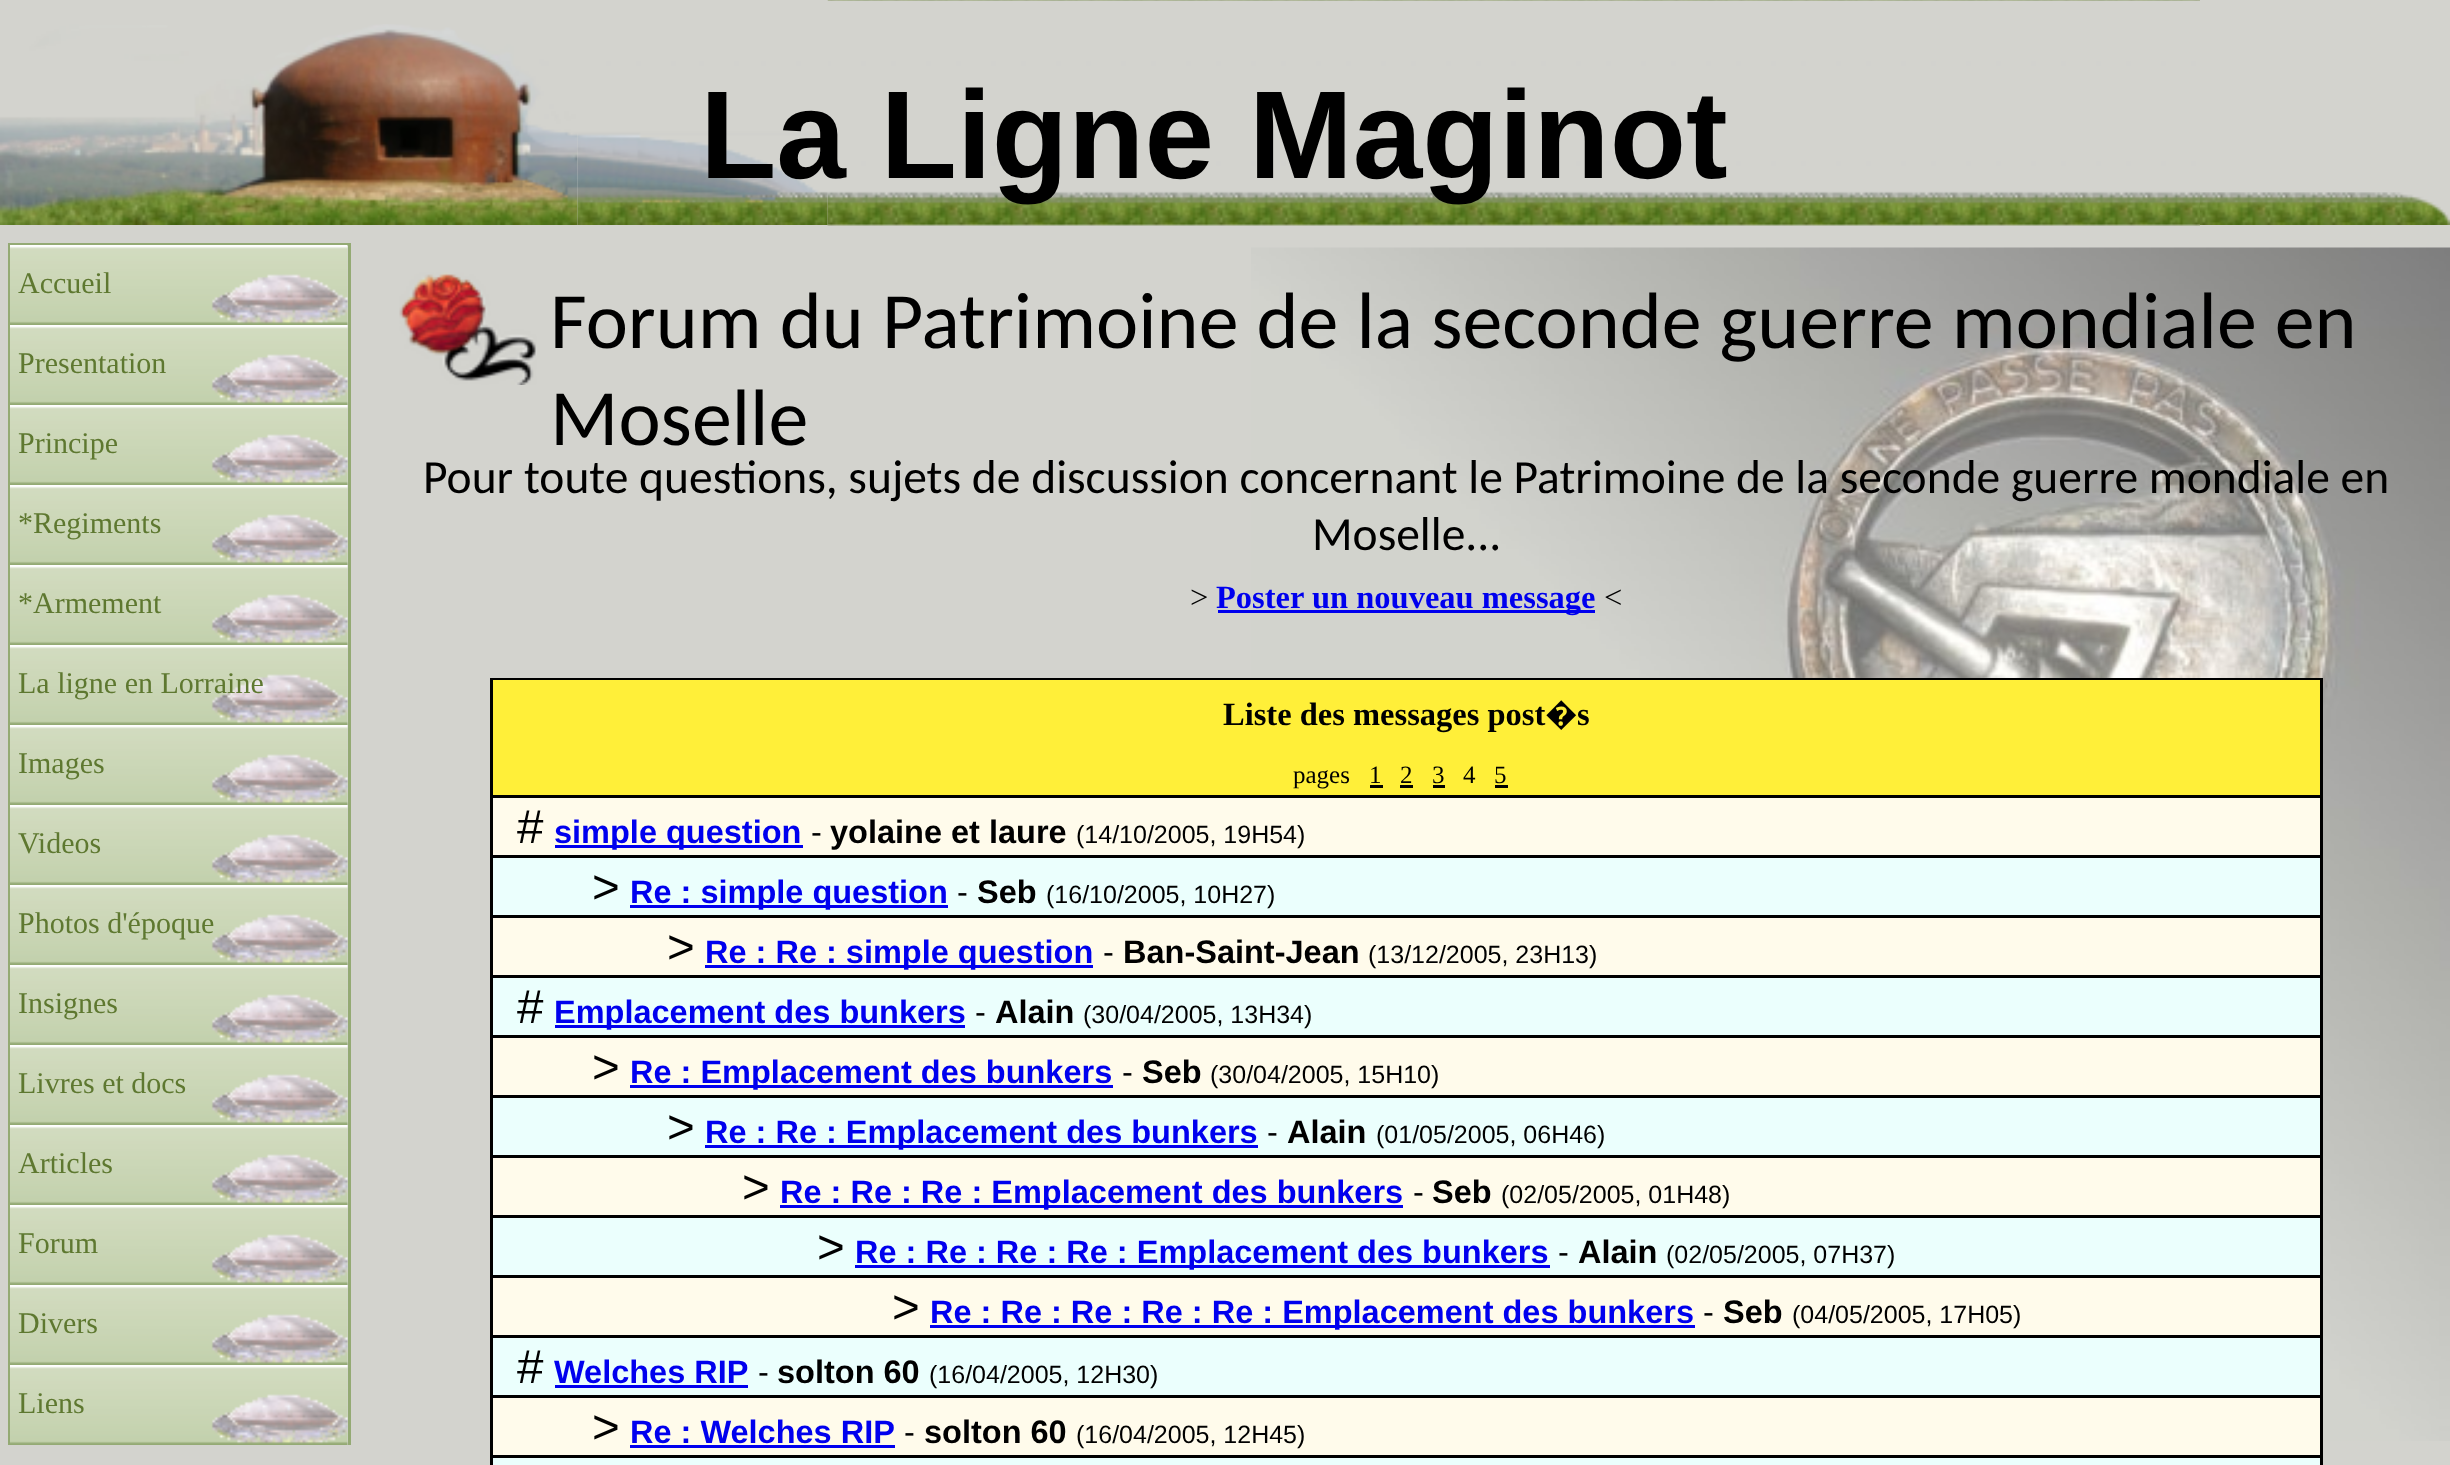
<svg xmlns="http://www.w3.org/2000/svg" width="2450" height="1465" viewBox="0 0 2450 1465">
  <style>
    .t1 { font: bold 125px Liberation Sans; fill: #000; }
    .t2 { font: 30px Liberation Serif; fill: #5e7830; }
    .t3 { font: 80px Carlito; fill: #000; }
    .t4 { font: 47.5px Carlito; fill: #000; }
    .t5 { font: 32.5px Liberation Serif; fill: #000; }
    .t6 { font: bold 32.5px Liberation Serif; fill: #00e; }
    .t7 { font: bold 32.5px Liberation Serif; fill: #000; }
    .t8 { font: bold 32.5px Noto Sans; fill: #000; }
    .t9 { font: 25px Liberation Serif; fill: #000; }
    .t10 { font: 47.5px Liberation Sans; fill: #000; }
    .t11 { font: bold 32.5px Liberation Sans; fill: #00e; }
    .t12 { font: 32.5px Liberation Sans; fill: #000; }
    .t13 { font: bold 32.5px Liberation Sans; fill: #000; }
    .t14 { font: 25px Liberation Sans; fill: #000; }
  </style>
  <rect width="100%" height="100%" fill="#d3d3ce"/>
  <image x="0" y="24" width="578" height="201" href="images/1.png"/>
  <image x="827" y="0" width="1373" height="226" href="images/3.png"/>
  <image x="577" y="0" width="251" height="225" href="images/2.png"/>
  <image x="2200" y="192" width="250" height="33" href="images/4.png"/>
  <text x="700" y="178" class="t1">La Ligne Maginot</text>
  <rect x="8" y="243" width="342" height="3" fill="#94aa74"/>
  <rect x="348" y="243" width="3" height="1202" fill="#94aa74"/>
  <rect x="8" y="243" width="3" height="1202" fill="#94aa74"/>
  <image x="10" y="245" width="338" height="80" href="images/5.png"/>
  <text x="18" y="293" class="t2">Accueil</text>
  <image x="10" y="325" width="338" height="80" href="images/6.png"/>
  <text x="18" y="373" class="t2">Presentation</text>
  <image x="10" y="405" width="338" height="80" href="images/6.png"/>
  <text x="18" y="453" class="t2">Principe</text>
  <image x="10" y="485" width="338" height="80" href="images/6.png"/>
  <text x="18" y="533" class="t2">*Regiments</text>
  <image x="10" y="565" width="338" height="80" href="images/7.png"/>
  <text x="18" y="613" class="t2">*Armement</text>
  <image x="10" y="645" width="338" height="80" href="images/6.png"/>
  <text x="18" y="693" class="t2">La ligne en Lorraine</text>
  <image x="10" y="725" width="338" height="80" href="images/6.png"/>
  <text x="18" y="773" class="t2">Images</text>
  <image x="10" y="805" width="338" height="80" href="images/6.png"/>
  <text x="18" y="853" class="t2">Videos</text>
  <image x="10" y="885" width="338" height="80" href="images/6.png"/>
  <text x="18" y="933" class="t2">Photos d'époque</text>
  <image x="10" y="965" width="338" height="80" href="images/6.png"/>
  <text x="18" y="1013" class="t2">Insignes</text>
  <image x="10" y="1045" width="338" height="80" href="images/6.png"/>
  <text x="18" y="1093" class="t2">Livres et docs</text>
  <image x="10" y="1125" width="338" height="80" href="images/8.png"/>
  <text x="18" y="1173" class="t2">Articles</text>
  <image x="10" y="1205" width="338" height="80" href="images/6.png"/>
  <text x="18" y="1253" class="t2">Forum</text>
  <image x="10" y="1285" width="338" height="80" href="images/6.png"/>
  <text x="18" y="1333" class="t2">Divers</text>
  <image x="10" y="1365" width="338" height="80" href="images/6.png"/>
  <text x="18" y="1413" class="t2">Liens</text>
  <image x="1251" y="247" width="1199" height="1194" href="images/9.png"/>
  <image x="399" y="272" width="138" height="113" href="images/10.png"/>
  <text x="550" y="348" class="t3">Forum du Patrimoine de la seconde guerre mondiale en</text>
  <text x="550" y="445" class="t3">Moselle</text>
  <text x="423" y="493" class="t4">Pour toute questions, sujets de discussion concernant le Patrimoine de la seconde guerre mondiale en</text>
  <text x="1312" y="550" class="t4">Moselle...</text>
  <text x="1190" y="608" class="t5">&gt;</text>
  <rect x="1218" y="610" width="377" height="3" fill="#00e"/>
  <text x="1216" y="608" class="t6">Poster un nouveau message</text>
  <text x="1604" y="608" class="t5">&lt;</text>
  <rect x="490" y="678" width="1833" height="787" fill="#000"/>
  <rect x="493" y="680" width="1827" height="115" fill="#ffef39"/>
  <text x="1223" y="725" class="t7">Liste des messages post</text>
  <text x="1545" y="725" class="t8">�</text>
  <text x="1577" y="725" class="t7">s</text>
  <text x="1293" y="783" class="t9">pages</text>
  <text x="1369" y="783" class="t9">1</text>
  <rect x="1370" y="785" width="13" height="3" fill="#000"/>
  <text x="1400" y="783" class="t9">2</text>
  <rect x="1400" y="785" width="13" height="3" fill="#000"/>
  <text x="1432" y="783" class="t9">3</text>
  <rect x="1433" y="785" width="12" height="3" fill="#000"/>
  <text x="1463" y="783" class="t9">4</text>
  <text x="1494" y="783" class="t9">5</text>
  <rect x="1495" y="785" width="13" height="3" fill="#000"/>
  <rect x="493" y="798" width="1827" height="57" fill="#fffbeb"/>
  <text x="517" y="843" class="t10">#</text>
  <rect x="555" y="845" width="248" height="3" fill="#00e"/>
  <text x="554" y="843" class="t11">simple question</text>
  <text x="811" y="843" class="t12">-</text>
  <text x="830" y="843" class="t13">yolaine et laure</text>
  <text x="1076" y="843" class="t14">(14/10/2005, 19H54)</text>
  <rect x="493" y="858" width="1827" height="57" fill="#ebfffd"/>
  <text x="592" y="903" class="t10">&gt;</text>
  <rect x="630" y="905" width="318" height="3" fill="#00e"/>
  <text x="630" y="903" class="t11">Re : simple question</text>
  <text x="957" y="903" class="t12">-</text>
  <text x="977" y="903" class="t13">Seb</text>
  <text x="1046" y="903" class="t14">(16/10/2005, 10H27)</text>
  <rect x="493" y="918" width="1827" height="57" fill="#fffbeb"/>
  <text x="667" y="963" class="t10">&gt;</text>
  <rect x="705" y="965" width="388" height="3" fill="#00e"/>
  <text x="705" y="963" class="t11">Re : Re : simple question</text>
  <text x="1103" y="963" class="t12">-</text>
  <text x="1123" y="963" class="t13">Ban-Saint-Jean</text>
  <text x="1368" y="963" class="t14">(13/12/2005, 23H13)</text>
  <rect x="493" y="978" width="1827" height="57" fill="#ebfffd"/>
  <text x="517" y="1023" class="t10">#</text>
  <rect x="555" y="1025" width="410" height="3" fill="#00e"/>
  <text x="554" y="1023" class="t11">Emplacement des bunkers</text>
  <text x="975" y="1023" class="t12">-</text>
  <text x="995" y="1023" class="t13">Alain</text>
  <text x="1083" y="1023" class="t14">(30/04/2005, 13H34)</text>
  <rect x="493" y="1038" width="1827" height="57" fill="#fffbeb"/>
  <text x="592" y="1083" class="t10">&gt;</text>
  <rect x="630" y="1085" width="483" height="3" fill="#00e"/>
  <text x="630" y="1083" class="t11">Re : Emplacement des bunkers</text>
  <text x="1122" y="1083" class="t12">-</text>
  <text x="1142" y="1083" class="t13">Seb</text>
  <text x="1210" y="1083" class="t14">(30/04/2005, 15H10)</text>
  <rect x="493" y="1098" width="1827" height="57" fill="#ebfffd"/>
  <text x="667" y="1143" class="t10">&gt;</text>
  <rect x="705" y="1145" width="553" height="3" fill="#00e"/>
  <text x="705" y="1143" class="t11">Re : Re : Emplacement des bunkers</text>
  <text x="1267" y="1143" class="t12">-</text>
  <text x="1287" y="1143" class="t13">Alain</text>
  <text x="1376" y="1143" class="t14">(01/05/2005, 06H46)</text>
  <rect x="493" y="1158" width="1827" height="57" fill="#fffbeb"/>
  <text x="742" y="1203" class="t10">&gt;</text>
  <rect x="780" y="1205" width="623" height="3" fill="#00e"/>
  <text x="780" y="1203" class="t11">Re : Re : Re : Emplacement des bunkers</text>
  <text x="1413" y="1203" class="t12">-</text>
  <text x="1432" y="1203" class="t13">Seb</text>
  <text x="1501" y="1203" class="t14">(02/05/2005, 01H48)</text>
  <rect x="493" y="1218" width="1827" height="57" fill="#ebfffd"/>
  <text x="817" y="1263" class="t10">&gt;</text>
  <rect x="855" y="1265" width="695" height="3" fill="#00e"/>
  <text x="855" y="1263" class="t11">Re : Re : Re : Re : Emplacement des bunkers</text>
  <text x="1558" y="1263" class="t12">-</text>
  <text x="1578" y="1263" class="t13">Alain</text>
  <text x="1666" y="1263" class="t14">(02/05/2005, 07H37)</text>
  <rect x="493" y="1278" width="1827" height="57" fill="#fffbeb"/>
  <text x="892" y="1323" class="t10">&gt;</text>
  <rect x="930" y="1325" width="765" height="3" fill="#00e"/>
  <text x="930" y="1323" class="t11">Re : Re : Re : Re : Re : Emplacement des bunkers</text>
  <text x="1703" y="1323" class="t12">-</text>
  <text x="1723" y="1323" class="t13">Seb</text>
  <text x="1792" y="1323" class="t14">(04/05/2005, 17H05)</text>
  <rect x="493" y="1338" width="1827" height="57" fill="#ebfffd"/>
  <text x="517" y="1383" class="t10">#</text>
  <text x="554" y="1383" class="t11">Welches RIP</text>
  <rect x="555" y="1385" width="193" height="3" fill="#00e"/>
  <text x="758" y="1383" class="t12">-</text>
  <text x="777" y="1383" class="t13">solton 60</text>
  <text x="929" y="1383" class="t14">(16/04/2005, 12H30)</text>
  <rect x="493" y="1398" width="1827" height="57" fill="#fffbeb"/>
  <text x="592" y="1443" class="t10">&gt;</text>
  <text x="630" y="1443" class="t11">Re : Welches RIP</text>
  <rect x="630" y="1445" width="265" height="3" fill="#00e"/>
  <text x="904" y="1443" class="t12">-</text>
  <text x="924" y="1443" class="t13">solton 60</text>
  <text x="1076" y="1443" class="t14">(16/04/2005, 12H45)</text>
  <rect x="493" y="1458" width="1827" height="7" fill="#ebfffd"/>
</svg>
